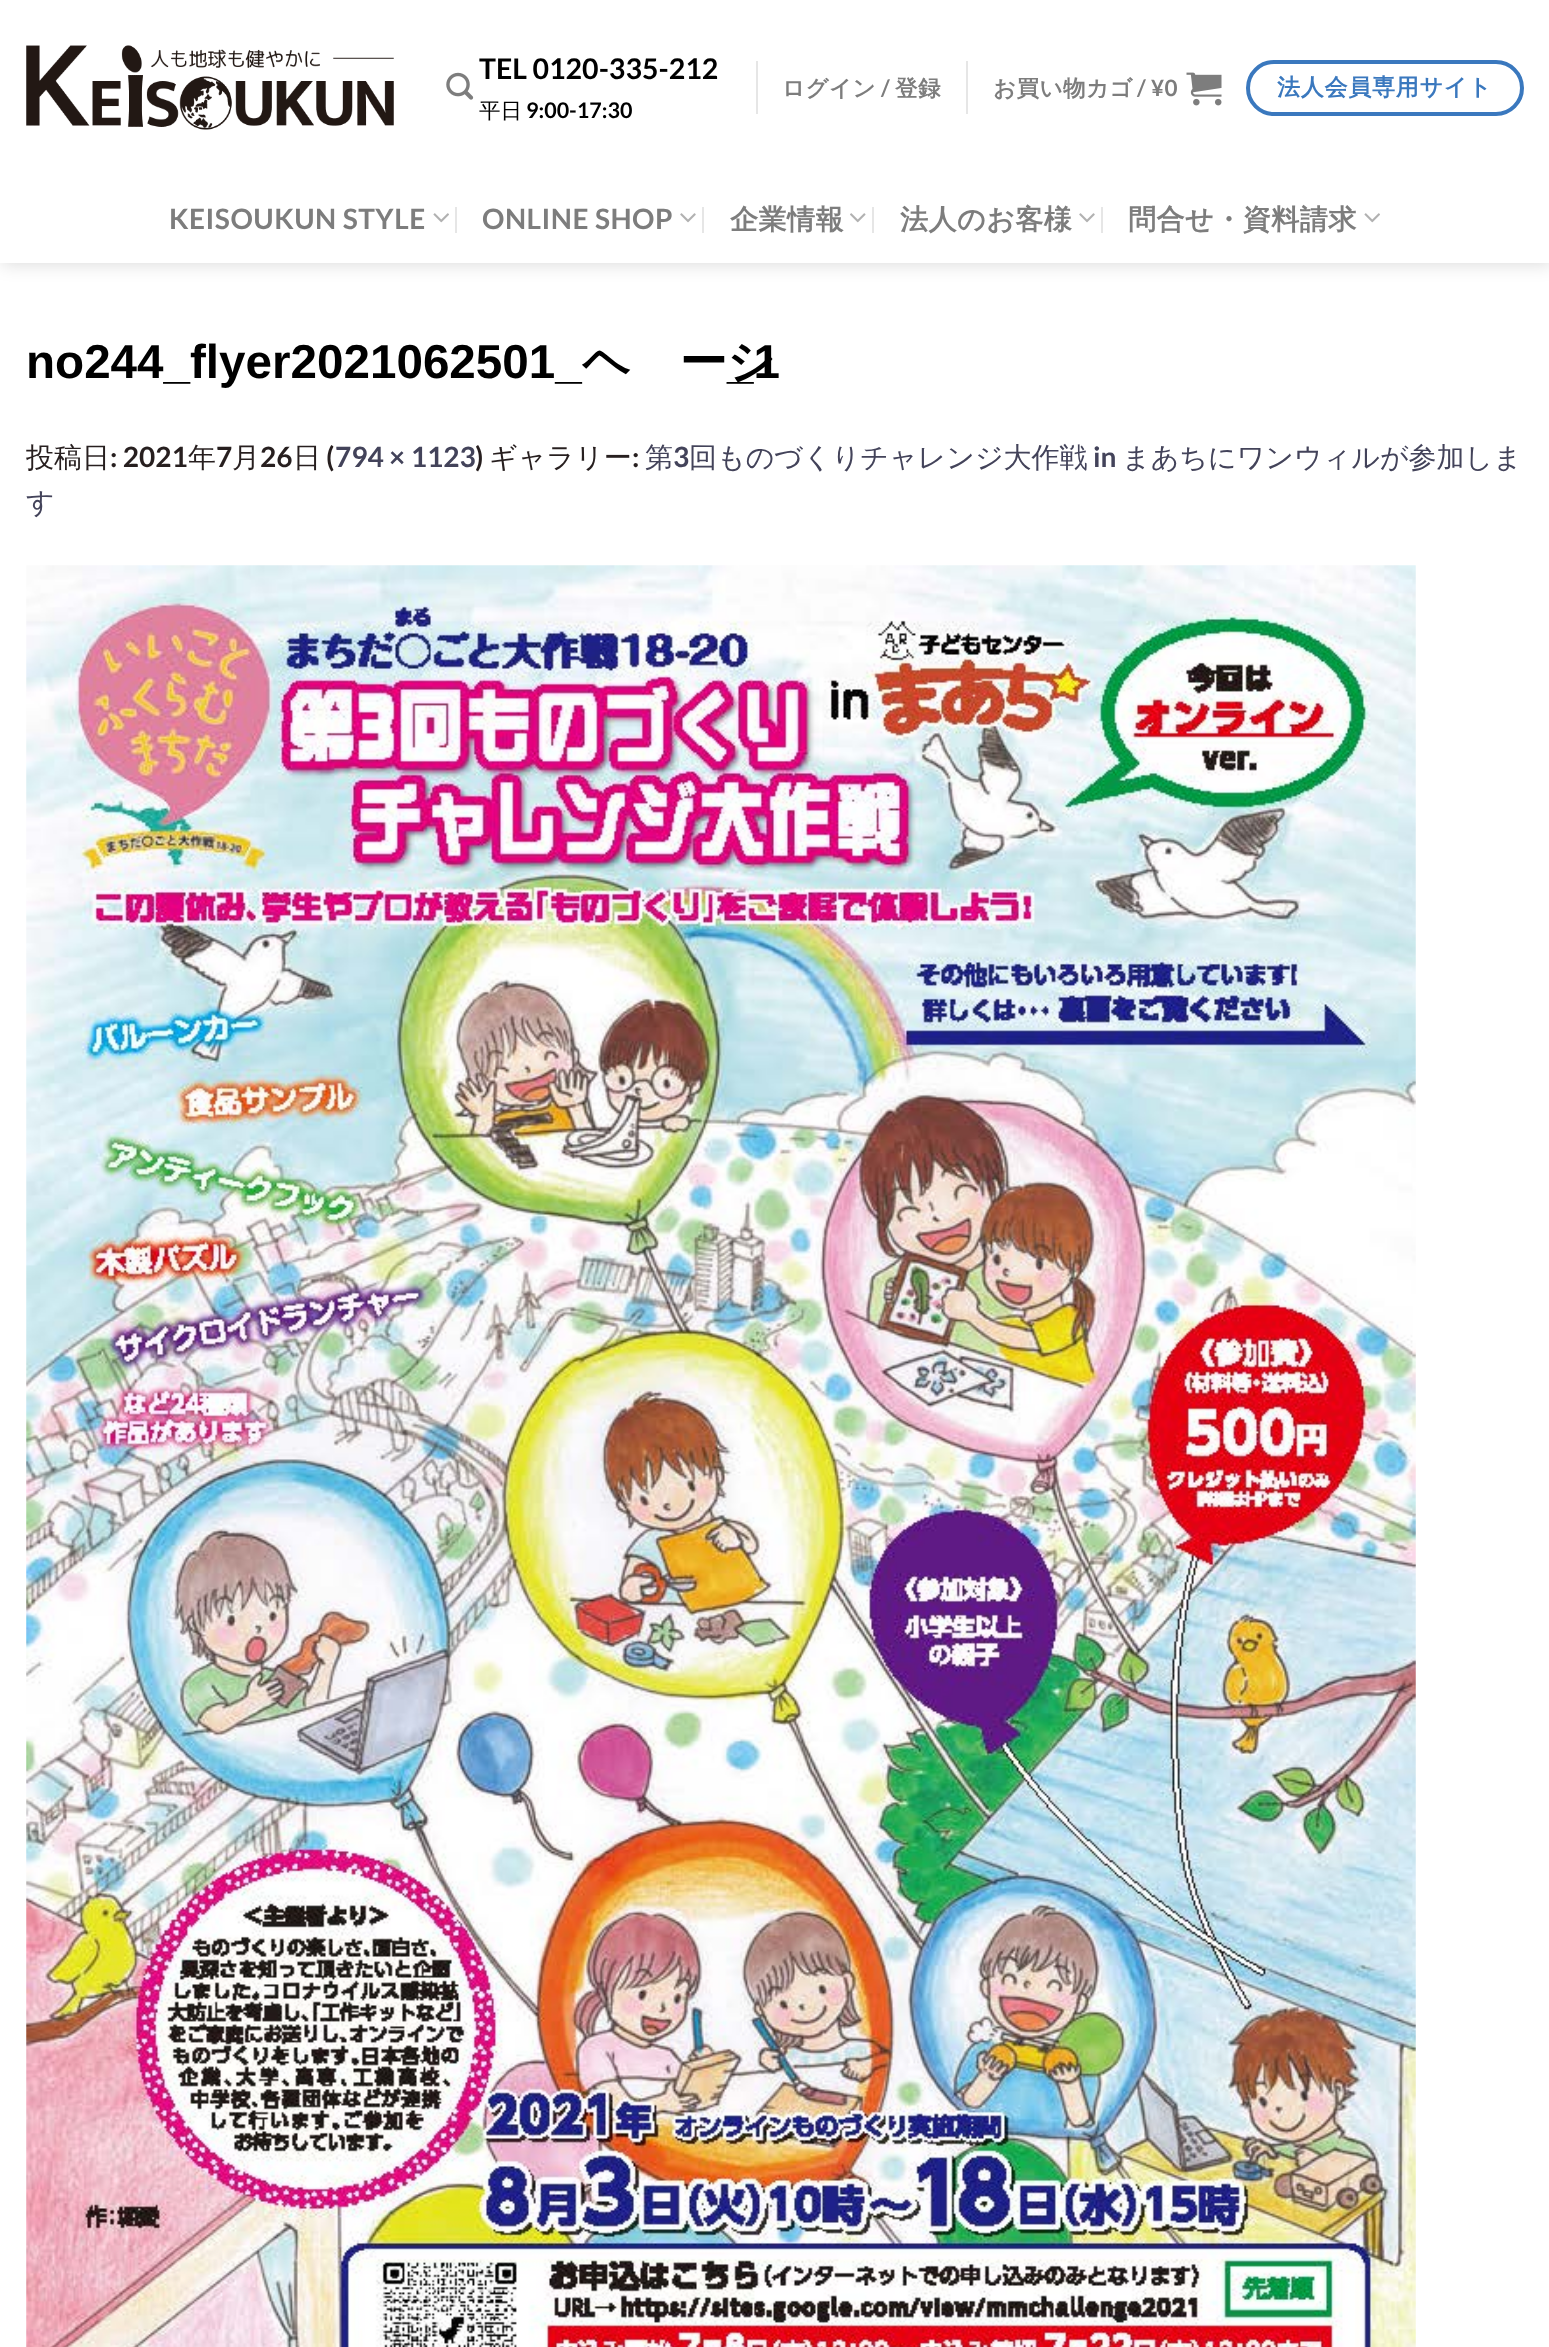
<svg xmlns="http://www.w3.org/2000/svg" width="1549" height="2347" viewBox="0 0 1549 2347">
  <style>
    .t1 { font: bold 28.5px Lato; fill: #000; }
    .t2 { font: 500 21.5px WenQuanYi Zen Hei; fill: #000; }
    .t3 { font: bold 21.5px Lato; fill: #000; }
    .t4 { font: bold 22.5px WenQuanYi Zen Hei; letter-spacing: 0.5px; fill: #7d7d7d; }
    .t5 { font: bold 22.5px Lato; letter-spacing: 0.5px; fill: #7d7d7d; }
    .t6 { font: bold 23px WenQuanYi Zen Hei; letter-spacing: 0.75px; fill: #3a78be; }
    .t7 { font: bold 28px Lato; letter-spacing: 0.5px; fill: #7d7d7d; }
    .t8 { font: bold 28px WenQuanYi Zen Hei; letter-spacing: 0.5px; fill: #7d7d7d; }
    .t9 { font: bold 47.6px Liberation Sans; fill: #000; }
    .t10 { font: bold 47.6px WenQuanYi Zen Hei; fill: #000; }
    .t11 { font: 500 28px WenQuanYi Zen Hei; fill: #271f1f; }
    .t12 { font: bold 28px Lato; fill: #271f1f; }
    .t13 { font: bold 28px Lato; fill: #43435a; }
    .t14 { font: 500 28px WenQuanYi Zen Hei; fill: #43435a; }
  </style>
  <defs>
    <clipPath id="clip1"><path d="M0 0H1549V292H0ZM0 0H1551V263H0Z" clip-rule="evenodd"/></clipPath>
  </defs>
  <rect width="100%" height="100%" fill="#fff"/>
  <g clip-path="url(#clip1)">
    <rect x="2" y="2" width="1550" height="262" fill="#00000026" filter="blur(9px)"/>
  </g>
  <image x="26" y="45" width="368" height="85" href="images/1.png"/>
  <image x="446" y="72" width="28" height="28" href="images/2.png"/>
  <text x="479" y="79" class="t1">TEL 0120-335-212</text>
  <text x="479" y="118" class="t2">平日</text>
  <text x="526" y="118" class="t3">9:00-17:30</text>
  <rect x="756" y="61" width="2" height="53" fill="#e6e6e6"/>
  <text x="782" y="96" class="t4">ログイン</text>
  <text x="881" y="96" class="t5">/</text>
  <text x="895" y="96" class="t4">登録</text>
  <rect x="966" y="61" width="2" height="53" fill="#e6e6e6"/>
  <text x="993" y="96" class="t4">お買い物カゴ</text>
  <text x="1137" y="96" class="t5">/ ¥0</text>
  <image x="1186" y="72" width="36" height="34" href="images/3.png"/>
  <rect x="1248" y="62" width="274" height="52" rx="26" fill="none" stroke="#3a78be" stroke-width="4"/>
  <text x="1277" y="95" class="t6">法人会員専用サイト</text>
  <text x="169" y="229" class="t7">KEISOUKUN STYLE</text>
  <image x="433" y="213" width="16" height="10" href="images/4.png"/>
  <rect x="455" y="207" width="2" height="26" fill="#e6e6e6"/>
  <text x="482" y="229" class="t7">ONLINE SHOP</text>
  <image x="680" y="213" width="16" height="10" href="images/5.png"/>
  <rect x="702" y="207" width="2" height="26" fill="#e6e6e6"/>
  <text x="730" y="229" class="t8">企業情報</text>
  <image x="850" y="213" width="16" height="10" href="images/6.png"/>
  <rect x="872" y="207" width="2" height="26" fill="#e6e6e6"/>
  <text x="900" y="229" class="t8">法人のお客様</text>
  <image x="1079" y="213" width="16" height="10" href="images/5.png"/>
  <rect x="1101" y="207" width="2" height="26" fill="#e6e6e6"/>
  <text x="1128" y="229" class="t8">問合せ・資料請求</text>
  <image x="1364" y="213" width="16" height="10" href="images/4.png"/>
  <rect x="0" y="262" width="1549" height="1" fill="#ffffffe6"/>
  <text x="26" y="378" class="t9">no244_flyer2021062501_</text>
  <text x="582" y="378" class="t10">ページ</text>
  <text x="727" y="378" class="t9">_1</text>
  <text x="26" y="467" class="t11">投稿日</text>
  <text x="110" y="467" class="t12">: 2021</text>
  <text x="188" y="467" class="t11">年</text>
  <text x="216" y="467" class="t12">7</text>
  <text x="232" y="467" class="t11">月</text>
  <text x="260" y="467" class="t12">26</text>
  <text x="293" y="467" class="t11">日</text>
  <text x="326" y="467" class="t12">(</text>
  <text x="335" y="467" class="t13">794 × 1123</text>
  <text x="475" y="467" class="t12">)</text>
  <text x="489" y="467" class="t11">ギャラリー</text>
  <text x="632" y="467" class="t12">:</text>
  <text x="645" y="467" class="t14">第</text>
  <text x="673" y="467" class="t13">3</text>
  <text x="689" y="467" class="t14">回ものづくりチャレンジ大作戦</text>
  <text x="1093" y="467" class="t13">in</text>
  <text x="1122" y="467" class="t14">まあちにワンウィルが参加しま</text>
  <text x="26" y="512" class="t14">す</text>
  <image x="26" y="565" width="1390" height="1782" href="images/7.png"/>
</svg>
